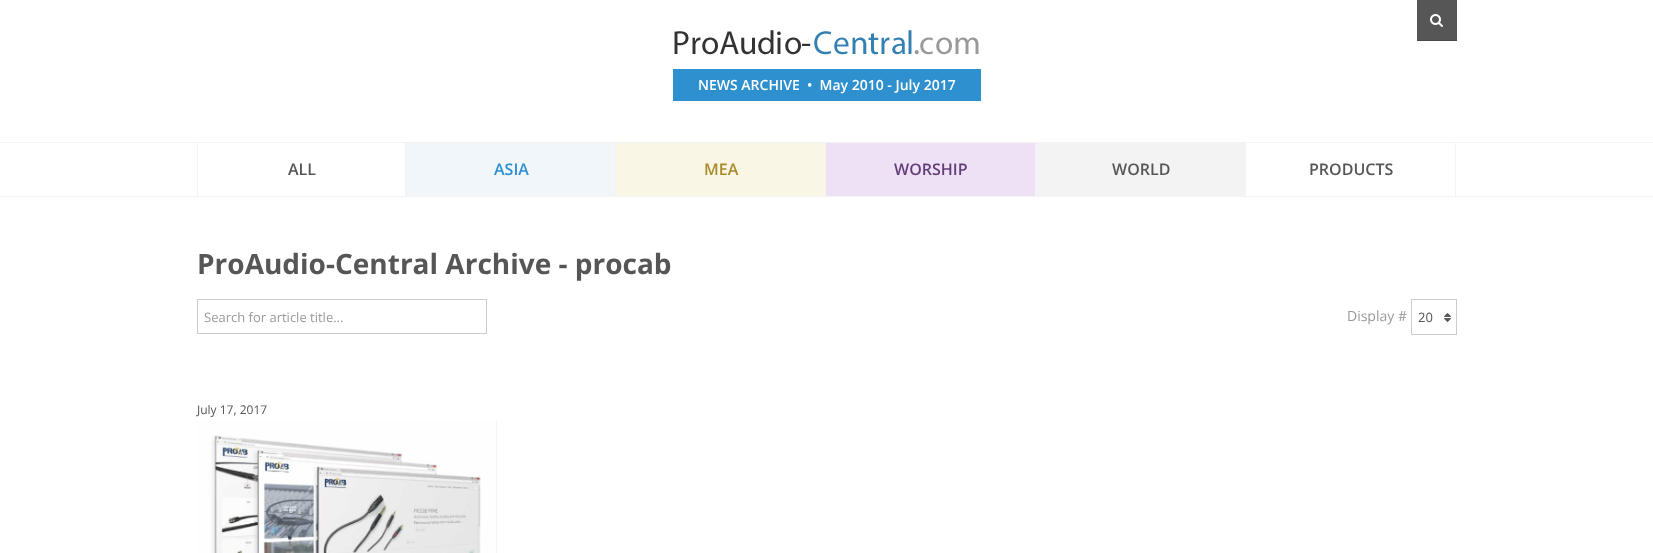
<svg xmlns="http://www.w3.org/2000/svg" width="1653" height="553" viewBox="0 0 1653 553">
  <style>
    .t1 { font: 600 14px Open Sans; fill: #fff; }
    .t2 { font: 600 16px Open Sans; fill: #565656; }
    .t3 { font: 600 16px Open Sans; fill: #2e90cf; }
    .t4 { font: 600 16px Open Sans; fill: #a88c27; }
    .t5 { font: 600 16px Open Sans; fill: #633d77; }
    .t6 { font: bold 28px Open Sans; fill: #565656; }
    .t7 { font: 13px Open Sans; fill: #9a9a99; }
    .t8 { font: 14px Open Sans; fill: #9a9a99; }
    .t9 { font: 13px Open Sans; fill: #565656; }
    .t10 { font: 12px Open Sans; fill: #565656; }
  </style>
  <rect width="100%" height="100%" fill="#fff"/>
  <rect x="1417" y="40" width="40" height="1" fill="#494949"/>
  <rect x="1417" y="0" width="40" height="40" fill="#565656"/>
  <image x="1430" y="14" width="13" height="13" href="images/1.png"/>
  <image x="674" y="30" width="305" height="25" href="images/2.png"/>
  <rect x="673" y="69" width="308" height="32" fill="#2e90cf"/>
  <text x="698" y="90" class="t1" xml:space="preserve">NEWS ARCHIVE  •  May 2010 - July 2017</text>
  <rect x="0" y="142" width="1653" height="1" fill="#f3f3f3"/>
  <rect x="0" y="196" width="1653" height="1" fill="#f3f3f3"/>
  <rect x="405" y="143" width="1" height="53" fill="#f3f3f3"/>
  <rect x="197" y="143" width="1" height="53" fill="#f3f3f3"/>
  <text x="288" y="175" class="t2">ALL</text>
  <rect x="406" y="143" width="209" height="53" fill="#f0f6fa"/>
  <rect x="615" y="143" width="1" height="53" fill="#f3f3f3"/>
  <text x="494" y="175" class="t3">ASIA</text>
  <rect x="616" y="143" width="209" height="53" fill="#faf6e6"/>
  <rect x="825" y="143" width="1" height="53" fill="#f3f3f3"/>
  <text x="704" y="175" class="t4">MEA</text>
  <rect x="826" y="143" width="209" height="53" fill="#eee0f5"/>
  <rect x="1035" y="143" width="211" height="53" fill="#f3f3f3"/>
  <text x="894" y="175" class="t5">WORSHIP</text>
  <text x="1112" y="175" class="t2">WORLD</text>
  <rect x="1455" y="143" width="1" height="53" fill="#f3f3f3"/>
  <text x="1309" y="175" class="t2">PRODUCTS</text>
  <text x="197" y="274" class="t6">ProAudio-Central Archive - procab</text>
  <rect x="197.5" y="299.5" width="289" height="34" fill="none" stroke="#ccc"/>
  <text x="204" y="322" class="t7">Search for article title...</text>
  <text x="1347" y="321" class="t8">Display #</text>
  <image x="1444" y="313" width="7" height="9" href="images/3.png"/>
  <rect x="1411.5" y="299.5" width="45" height="35" fill="none" stroke="#ccc"/>
  <text x="1418" y="322" class="t9">20</text>
  <rect x="496" y="421" width="1" height="132" fill="#f3f3f3"/>
  <text x="197" y="414" class="t10">July 17, 2017</text>
  <image x="197" y="421" width="299" height="132" href="images/4.png"/>
</svg>
